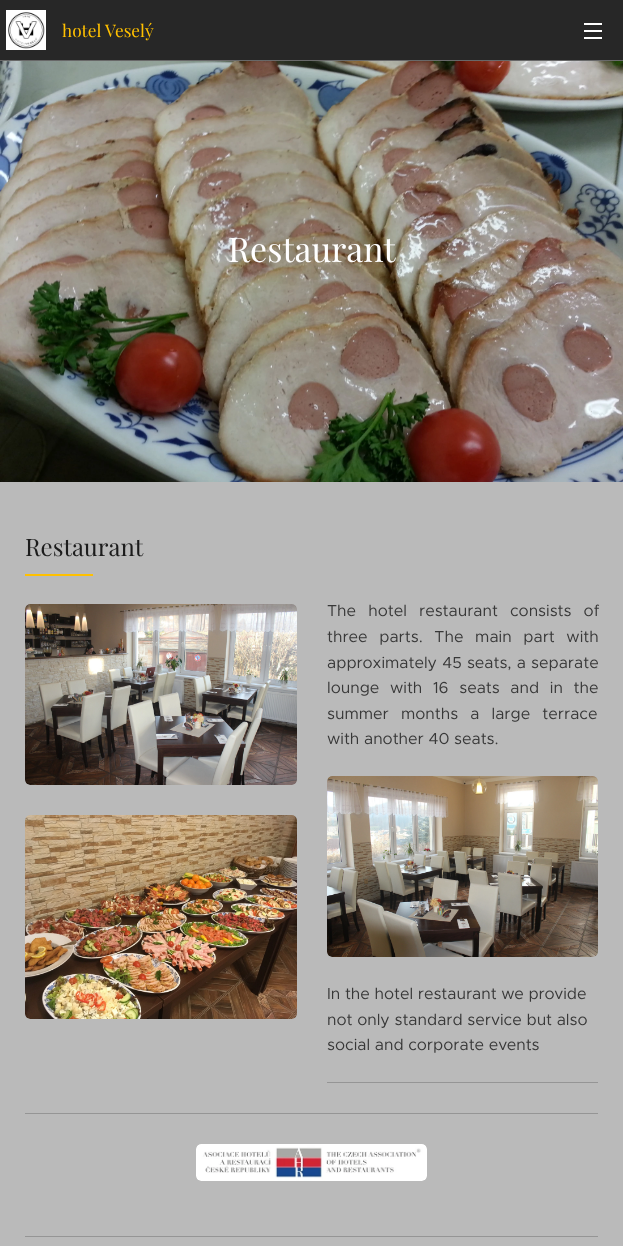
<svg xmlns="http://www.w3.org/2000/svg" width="623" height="1246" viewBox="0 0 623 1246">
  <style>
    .t1 { font: 17.25px Playfair Display; fill: #ffc000; }
    .t2 { font: 34px Playfair Display; fill: #fff; }
    .t3 { font: 24px Playfair Display; fill: #1c1c1c; }
    .t4 { font: 16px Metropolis; fill: #383838; }
  </style>
  <rect width="100%" height="100%" fill="#bababa"/>
  <rect x="0" y="0" width="623" height="60" fill="#272727"/>
  <rect x="0" y="60" width="623" height="1" fill="#686868"/>
  <image x="6" y="10" width="40" height="40" href="images/1.png"/>
  <text x="62" y="37" class="t1">hotel Veselý</text>
  <rect x="584" y="30" width="18" height="2" fill="#fff"/>
  <rect x="584" y="23" width="18" height="2" fill="#fff"/>
  <rect x="584" y="37" width="18" height="2" fill="#fff"/>
  <image x="0" y="61" width="623" height="421" href="images/2.png"/>
  <text x="228" y="262" class="t2">Restaurant</text>
  <text x="25" y="556" class="t3">Restaurant</text>
  <rect x="25" y="574" width="68" height="2" fill="#ffc000"/>
  <image x="25" y="604" width="272" height="181" href="images/3.png"/>
  <image x="25" y="815" width="272" height="204" href="images/4.png"/>
  <text x="327" y="616" word-spacing="7.5" class="t4">The hotel restaurant consists of</text>
  <text x="327" y="642" word-spacing="7" class="t4">three parts. The main part with</text>
  <text x="327" y="668" word-spacing="0.5" class="t4">approximately 45 seats, a separate</text>
  <text x="327" y="693" word-spacing="6" class="t4">lounge with 16 seats and in the</text>
  <text x="327" y="719" word-spacing="7.5" class="t4">summer months a large terrace</text>
  <text x="327" y="744" class="t4">with another 40 seats.</text>
  <image x="327" y="776" width="271" height="181" href="images/5.png"/>
  <text x="327" y="999" class="t4">In the hotel restaurant we provide</text>
  <text x="327" y="1025" class="t4">not only standard service but also</text>
  <text x="327" y="1050" class="t4">social and corporate events</text>
  <rect x="327" y="1082" width="271" height="1" fill="#959595"/>
  <rect x="25" y="1113" width="573" height="1" fill="#959595"/>
  <image x="196" y="1144" width="231" height="37" href="images/6.png"/>
  <rect x="25" y="1236" width="573" height="1" fill="#959595"/>
</svg>
